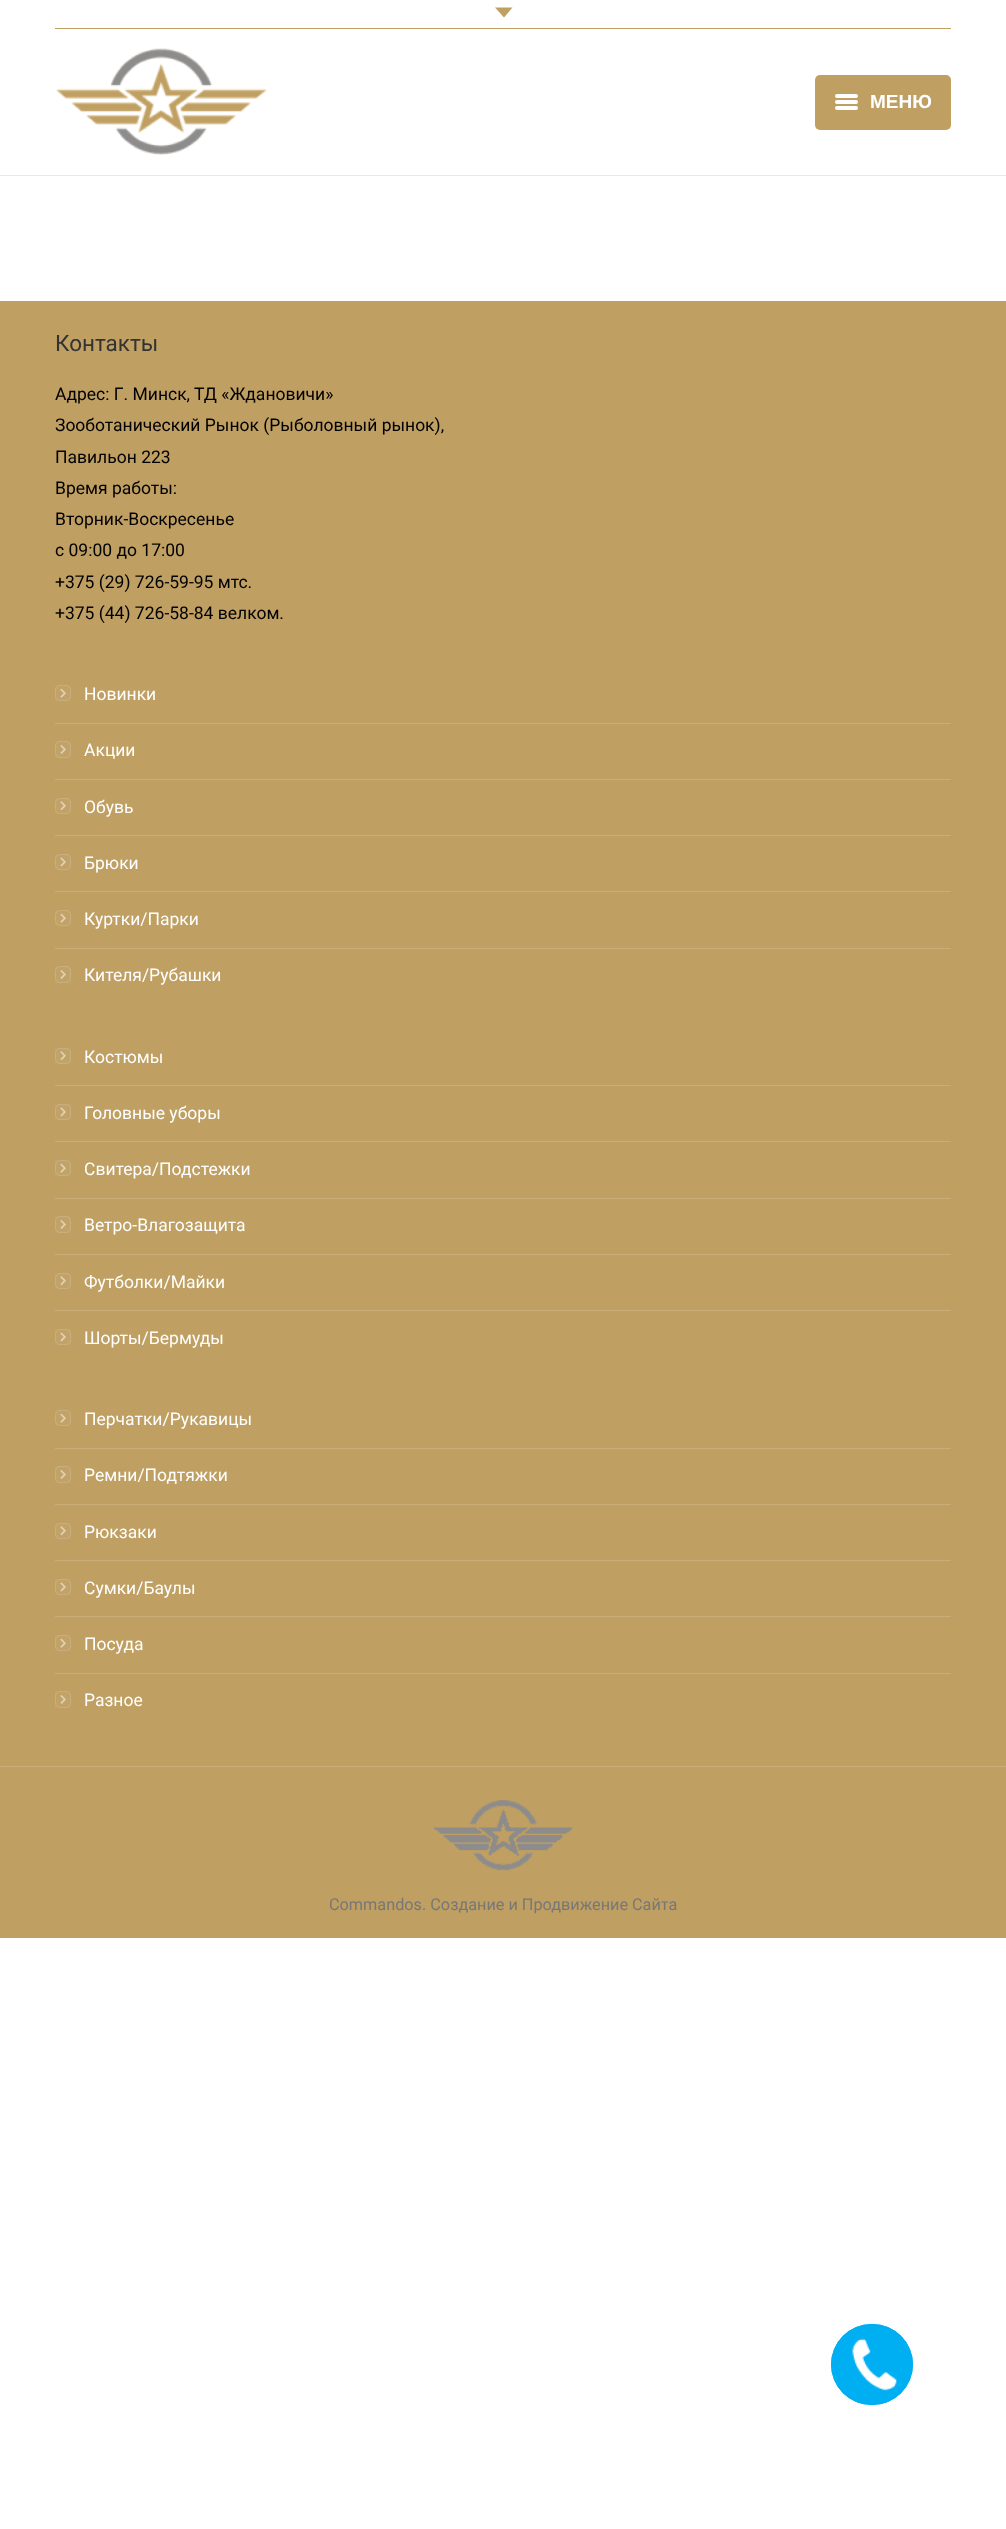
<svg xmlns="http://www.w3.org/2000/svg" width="1006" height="2529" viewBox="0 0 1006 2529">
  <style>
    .t1 { font: bold 19px Liberation Sans; fill: #fff; }
    .t2 { font: 22.5px Roboto; fill: #333; }
    .t3 { font: 17.5px Roboto; fill: #000; }
    .t4 { font: 17.5px Roboto; fill: #fff; }
    .t5 { font: 16.25px Roboto; fill: #777; }
  </style>
  <rect width="100%" height="100%" fill="#fff"/>
  <rect x="0" y="175" width="1006" height="1" fill="#e9e9e9"/>
  <rect x="55" y="28" width="896" height="1" fill="#bf9f62"/>
  <path d="M495 7.5H512.5L504 17.5Z" fill="#bf9f62"/>
  <image x="56" y="48" width="211" height="107" href="images/1.png"/>
  <rect x="815" y="75" width="136" height="55" rx="5" fill="#bf9f62"/>
  <rect x="835" y="100" width="23" height="4" rx="2" fill="#fff"/>
  <rect x="835" y="94" width="23" height="4" rx="2" fill="#fff"/>
  <rect x="835" y="106" width="23" height="4" rx="2" fill="#fff"/>
  <text x="870" y="108" class="t1">МЕНЮ</text>
  <rect x="0" y="301" width="1006" height="1637" fill="#bf9f62"/>
  <text x="55" y="351" class="t2">Контакты</text>
  <text x="55" y="400" class="t3">Адрес: Г. Минск, ТД «Ждановичи»</text>
  <text x="55" y="431" class="t3">Зооботанический Рынок (Рыболовный рынок),</text>
  <text x="55" y="463" class="t3">Павильон 223</text>
  <text x="55" y="494" class="t3">Время работы:</text>
  <text x="55" y="525" class="t3">Вторник-Воскресенье</text>
  <text x="55" y="556" class="t3">с 09:00 до 17:00</text>
  <text x="55" y="588" class="t3">+375 (29) 726-59-95 мтс.</text>
  <text x="55" y="619" class="t3">+375 (44) 726-58-84 велком.</text>
  <image x="60" y="688" width="6" height="10" href="images/2.png"/>
  <rect x="55" y="685" width="16" height="16" fill="#ffffff0a"/>
  <rect x="55.5" y="685.5" width="15" height="15" rx="4.5" fill="none" stroke="#ffffff26"/>
  <text x="84" y="700" class="t4">Новинки</text>
  <rect x="55" y="723" width="896" height="1" fill="#c9ad7a"/>
  <image x="60" y="744" width="6" height="10" href="images/3.png"/>
  <rect x="55" y="741" width="16" height="17" fill="#ffffff0a"/>
  <rect x="55.5" y="741.5" width="15" height="16" rx="4.5" fill="none" stroke="#ffffff26"/>
  <text x="84" y="756" class="t4">Акции</text>
  <rect x="55" y="779" width="896" height="1" fill="#c9ad7a"/>
  <image x="60" y="801" width="6" height="10" href="images/4.png"/>
  <rect x="55" y="798" width="16" height="16" fill="#ffffff0a"/>
  <rect x="55.5" y="798.5" width="15" height="15" rx="4.5" fill="none" stroke="#ffffff26"/>
  <text x="84" y="813" class="t4">Обувь</text>
  <rect x="55" y="835" width="896" height="1" fill="#c9ad7a"/>
  <image x="60" y="857" width="6" height="10" href="images/5.png"/>
  <rect x="55" y="854" width="16" height="16" fill="#ffffff0a"/>
  <rect x="55.5" y="854.5" width="15" height="15" rx="4.5" fill="none" stroke="#ffffff26"/>
  <text x="84" y="869" class="t4">Брюки</text>
  <rect x="55" y="891" width="896" height="1" fill="#c9ad7a"/>
  <image x="60" y="913" width="6" height="10" href="images/2.png"/>
  <rect x="55" y="910" width="16" height="16" fill="#ffffff0a"/>
  <rect x="55.5" y="910.5" width="15" height="15" rx="4.5" fill="none" stroke="#ffffff26"/>
  <text x="84" y="925" class="t4">Куртки/Парки</text>
  <rect x="55" y="948" width="896" height="1" fill="#c9ad7a"/>
  <image x="60" y="969" width="6" height="10" href="images/3.png"/>
  <rect x="55" y="966" width="16" height="17" fill="#ffffff0a"/>
  <rect x="55.5" y="966.5" width="15" height="16" rx="4.5" fill="none" stroke="#ffffff26"/>
  <text x="84" y="981" class="t4">Кителя/Рубашки</text>
  <image x="60" y="1051" width="6" height="10" href="images/4.png"/>
  <rect x="55" y="1048" width="16" height="16" fill="#ffffff0a"/>
  <rect x="55.5" y="1048.5" width="15" height="15" rx="4.5" fill="none" stroke="#ffffff26"/>
  <text x="84" y="1063" class="t4">Костюмы</text>
  <rect x="55" y="1085" width="896" height="1" fill="#c9ad7a"/>
  <image x="60" y="1107" width="6" height="10" href="images/5.png"/>
  <rect x="55" y="1104" width="16" height="16" fill="#ffffff0a"/>
  <rect x="55.5" y="1104.5" width="15" height="15" rx="4.5" fill="none" stroke="#ffffff26"/>
  <text x="84" y="1119" class="t4">Головные уборы</text>
  <rect x="55" y="1141" width="896" height="1" fill="#c9ad7a"/>
  <image x="60" y="1163" width="6" height="10" href="images/2.png"/>
  <rect x="55" y="1160" width="16" height="16" fill="#ffffff0a"/>
  <rect x="55.5" y="1160.5" width="15" height="15" rx="4.5" fill="none" stroke="#ffffff26"/>
  <text x="84" y="1175" class="t4">Свитера/Подстежки</text>
  <rect x="55" y="1198" width="896" height="1" fill="#c9ad7a"/>
  <image x="60" y="1219" width="6" height="10" href="images/3.png"/>
  <rect x="55" y="1216" width="16" height="17" fill="#ffffff0a"/>
  <rect x="55.5" y="1216.5" width="15" height="16" rx="4.5" fill="none" stroke="#ffffff26"/>
  <text x="84" y="1231" class="t4">Ветро-Влагозащита</text>
  <rect x="55" y="1254" width="896" height="1" fill="#c9ad7a"/>
  <image x="60" y="1276" width="6" height="10" href="images/4.png"/>
  <rect x="55" y="1273" width="16" height="16" fill="#ffffff0a"/>
  <rect x="55.5" y="1273.5" width="15" height="15" rx="4.5" fill="none" stroke="#ffffff26"/>
  <text x="84" y="1288" class="t4">Футболки/Майки</text>
  <rect x="55" y="1310" width="896" height="1" fill="#c9ad7a"/>
  <image x="60" y="1332" width="6" height="10" href="images/5.png"/>
  <rect x="55" y="1329" width="16" height="16" fill="#ffffff0a"/>
  <rect x="55.5" y="1329.5" width="15" height="15" rx="4.5" fill="none" stroke="#ffffff26"/>
  <text x="84" y="1344" class="t4">Шорты/Бермуды</text>
  <image x="60" y="1413" width="6" height="10" href="images/2.png"/>
  <rect x="55" y="1410" width="16" height="16" fill="#ffffff0a"/>
  <rect x="55.5" y="1410.5" width="15" height="15" rx="4.5" fill="none" stroke="#ffffff26"/>
  <text x="84" y="1425" class="t4">Перчатки/Рукавицы</text>
  <rect x="55" y="1448" width="896" height="1" fill="#c9ad7a"/>
  <image x="60" y="1469" width="6" height="10" href="images/3.png"/>
  <rect x="55" y="1466" width="16" height="17" fill="#ffffff0a"/>
  <rect x="55.5" y="1466.5" width="15" height="16" rx="4.5" fill="none" stroke="#ffffff26"/>
  <text x="84" y="1481" class="t4">Ремни/Подтяжки</text>
  <rect x="55" y="1504" width="896" height="1" fill="#c9ad7a"/>
  <image x="60" y="1526" width="6" height="10" href="images/4.png"/>
  <rect x="55" y="1523" width="16" height="16" fill="#ffffff0a"/>
  <rect x="55.5" y="1523.5" width="15" height="15" rx="4.5" fill="none" stroke="#ffffff26"/>
  <text x="84" y="1538" class="t4">Рюкзаки</text>
  <rect x="55" y="1560" width="896" height="1" fill="#c9ad7a"/>
  <image x="60" y="1582" width="6" height="10" href="images/5.png"/>
  <rect x="55" y="1579" width="16" height="16" fill="#ffffff0a"/>
  <rect x="55.5" y="1579.5" width="15" height="15" rx="4.5" fill="none" stroke="#ffffff26"/>
  <text x="84" y="1594" class="t4">Сумки/Баулы</text>
  <rect x="55" y="1616" width="896" height="1" fill="#c9ad7a"/>
  <image x="60" y="1638" width="6" height="10" href="images/2.png"/>
  <rect x="55" y="1635" width="16" height="16" fill="#ffffff0a"/>
  <rect x="55.5" y="1635.5" width="15" height="15" rx="4.5" fill="none" stroke="#ffffff26"/>
  <text x="84" y="1650" class="t4">Посуда</text>
  <rect x="55" y="1673" width="896" height="1" fill="#c9ad7a"/>
  <image x="60" y="1694" width="6" height="10" href="images/3.png"/>
  <rect x="55" y="1691" width="16" height="17" fill="#ffffff0a"/>
  <rect x="55.5" y="1691.5" width="15" height="16" rx="4.5" fill="none" stroke="#ffffff26"/>
  <text x="84" y="1706" class="t4">Разное</text>
  <rect x="0" y="1766" width="1006" height="1" fill="#c9ad7a"/>
  <image x="433" y="1800" width="140" height="71" href="images/6.png"/>
  <text x="329" y="1910" class="t5">Commandos. Создание и Продвижение Сайта</text>
  <rect x="831.5" y="2324.5" width="81" height="80" rx="40" fill="none" stroke="#00aff2"/>
  <rect x="831" y="2324" width="82" height="81" rx="40.5" fill="#00aff2"/>
  <image x="852" y="2338" width="45" height="53" href="images/7.png"/>
</svg>
